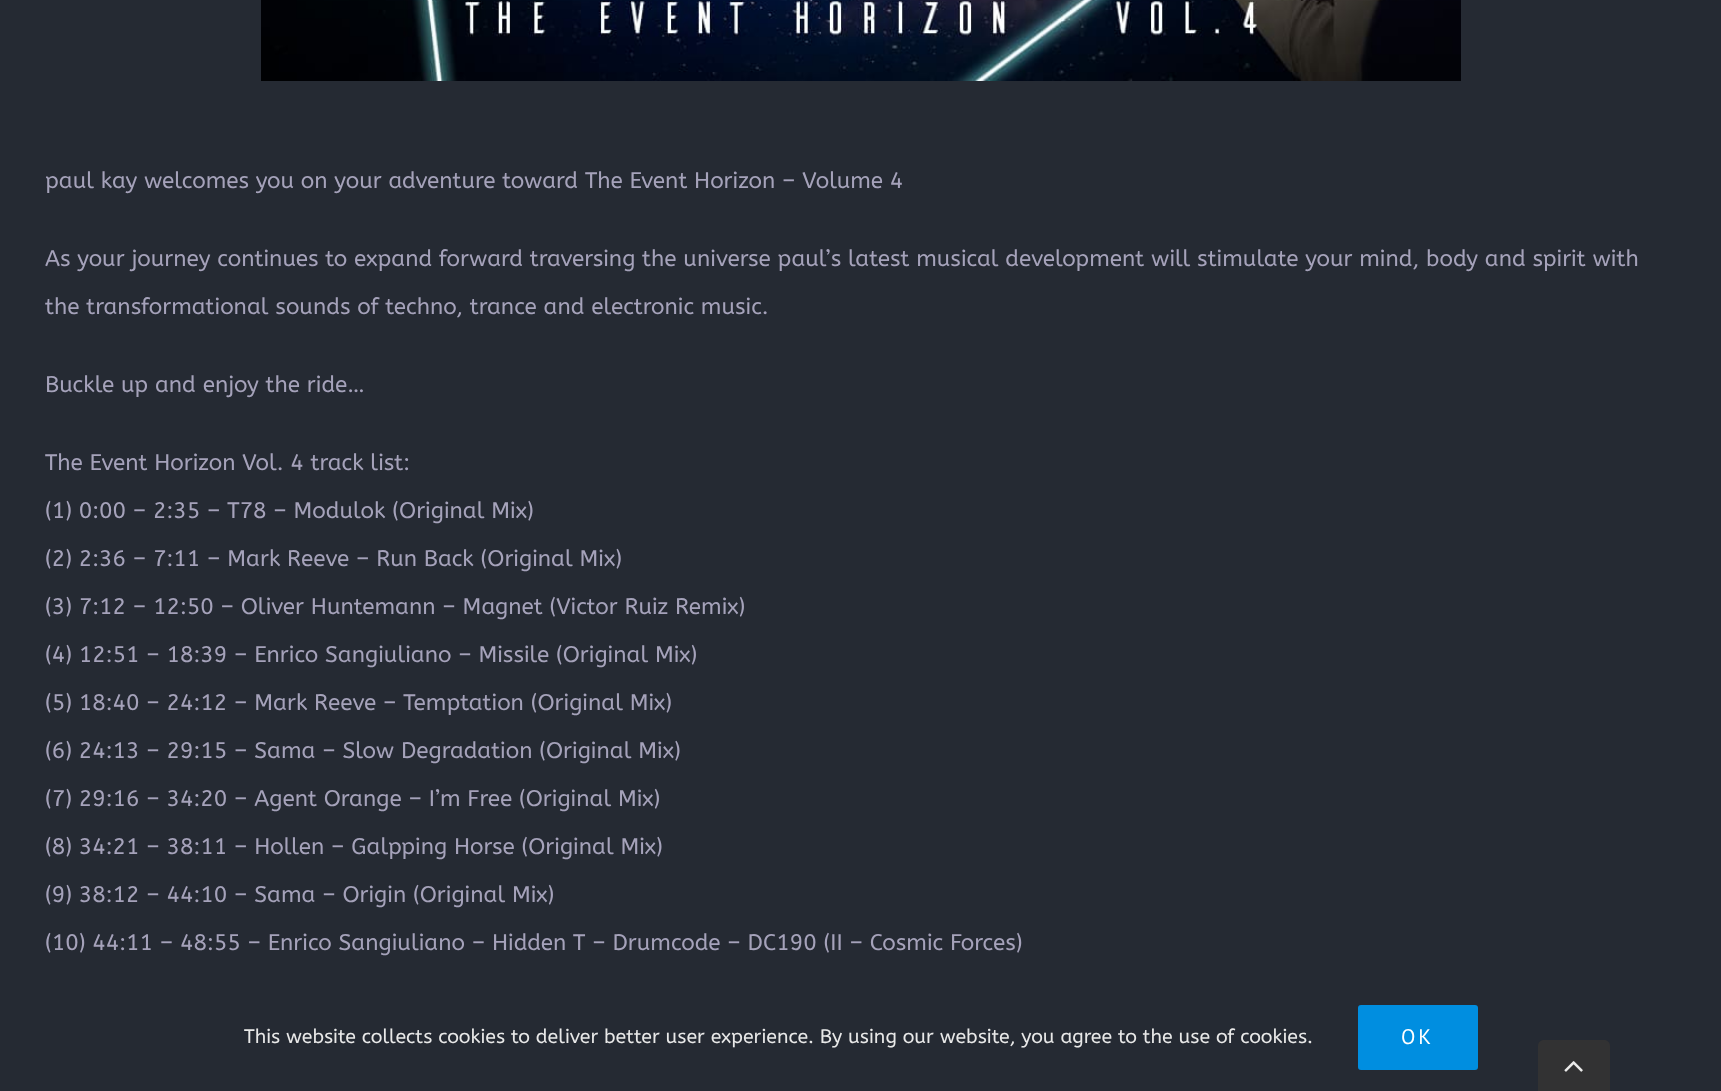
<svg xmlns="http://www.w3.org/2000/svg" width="1721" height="1091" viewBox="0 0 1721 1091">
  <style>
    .t1 { font: 22.5px ABeeZee; fill: #a5a2ba; }
    .t2 { font: 19.5px ABeeZee; fill: #e8e8e8; }
    .t3 { font: 21px PT Sans; letter-spacing: 3px; fill: #fff; }
  </style>
  <rect width="100%" height="100%" fill="#252a33"/>
  <image x="261" y="0" width="1200" height="81" href="images/1.png"/>
  <text x="45" y="188" class="t1">paul kay welcomes you on your adventure toward The Event Horizon – Volume 4</text>
  <text x="45" y="266" class="t1">As your journey continues to expand forward traversing the universe paul’s latest musical development will stimulate your mind, body and spirit with</text>
  <text x="45" y="314" class="t1">the transformational sounds of techno, trance and electronic music.</text>
  <text x="45" y="392" class="t1">Buckle up and enjoy the ride…</text>
  <text x="45" y="470" class="t1">The Event Horizon Vol. 4 track list:</text>
  <text x="45" y="518" class="t1">(1) 0:00 – 2:35 – T78 – Modulok (Original Mix)</text>
  <text x="45" y="566" class="t1">(2) 2:36 – 7:11 – Mark Reeve – Run Back (Original Mix)</text>
  <text x="45" y="614" class="t1">(3) 7:12 – 12:50 – Oliver Huntemann – Magnet (Victor Ruiz Remix)</text>
  <text x="45" y="662" class="t1">(4) 12:51 – 18:39 – Enrico Sangiuliano – Missile (Original Mix)</text>
  <text x="45" y="710" class="t1">(5) 18:40 – 24:12 – Mark Reeve – Temptation (Original Mix)</text>
  <text x="45" y="758" class="t1">(6) 24:13 – 29:15 – Sama – Slow Degradation (Original Mix)</text>
  <text x="45" y="806" class="t1">(7) 29:16 – 34:20 – Agent Orange – I’m Free (Original Mix)</text>
  <text x="45" y="854" class="t1">(8) 34:21 – 38:11 – Hollen – Galpping Horse (Original Mix)</text>
  <text x="45" y="902" class="t1">(9) 38:12 – 44:10 – Sama – Origin (Original Mix)</text>
  <text x="45" y="950" class="t1">(10) 44:11 – 48:55 – Enrico Sangiuliano – Hidden T – Drumcode – DC190 (II – Cosmic Forces)</text>
  <text x="244" y="1043" class="t2">This website collects cookies to deliver better user experience. By using our website, you agree to the use of cookies.</text>
  <rect x="1358" y="1005" width="120" height="65" rx="3" fill="#008ee0"/>
  <text x="1401" y="1044" class="t3">OK</text>
  <path d="M1544 1040H1604C1607.5 1040 1610 1042.5 1610 1046V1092H1538V1046C1538 1042.5 1540.5 1040 1544 1040Z" fill="#323233"/>
  <image x="1564" y="1061" width="19" height="11" href="images/2.png"/>
</svg>
